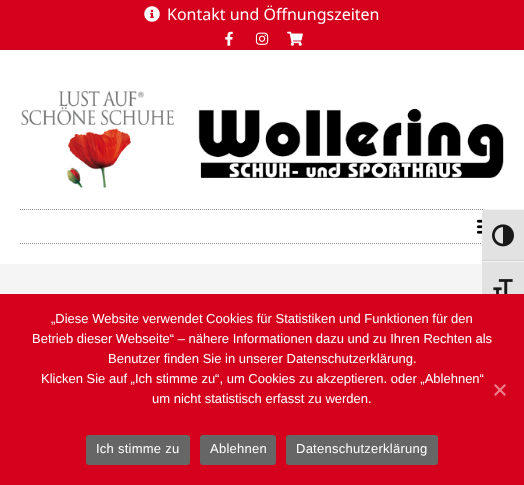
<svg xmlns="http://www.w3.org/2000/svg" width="524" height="485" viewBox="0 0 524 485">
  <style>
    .t1 { font: 16px Noto Sans; fill: #fff; }
    .t2 { font: 13px Liberation Sans; fill: #fff; }
    .t3 { font: 13px Liberation Sans; letter-spacing: 0.25px; fill: #fff; }
  </style>
  <rect width="100%" height="100%" fill="#fff"/>
  <rect x="0" y="0" width="524" height="50" fill="#d4021d"/>
  <image x="144" y="6" width="16" height="16" href="images/1.png"/>
  <text x="167" y="20" class="t1">Kontakt und Öffnungszeiten</text>
  <image x="225" y="31" width="8" height="15" href="images/2.png"/>
  <image x="255" y="32" width="14" height="13" href="images/3.png"/>
  <image x="287" y="31" width="16" height="15" href="images/4.png"/>
  <image x="21" y="91" width="483" height="97" href="images/5.png"/>
  <path d="M20 209.5H504" fill="none" stroke="#8e8e8e" stroke-dasharray="1 1"/>
  <path d="M20 243.5H504" fill="none" stroke="#8e8e8e" stroke-dasharray="1 1"/>
  <image x="476" y="219" width="6" height="15" href="images/6.png"/>
  <rect x="0" y="264" width="482" height="30" fill="#f5f5f5"/>
  <path d="M486 209H524V261H482V213C482 211 484 209 486 209Z" fill="#e2e2e2"/>
  <path d="M486 210H524V209H486C484 209 482 211 482 213C482 211 484 210 486 210Z" fill="#f5f5f5"/>
  <rect x="482" y="260" width="42" height="1" fill="#d2d2d2"/>
  <image x="492" y="224" width="22" height="23" href="images/7.png"/>
  <rect x="482" y="262" width="42" height="32" fill="#e2e2e2"/>
  <rect x="482" y="261" width="42" height="1" fill="#f5f5f5"/>
  <image x="493" y="279" width="20" height="15" href="images/8.png"/>
  <rect x="0" y="294" width="524" height="191" fill="#d4021d"/>
  <text x="51" y="323" class="t2">„Diese Website verwendet Cookies für Statistiken und Funktionen für den</text>
  <text x="32" y="343" class="t2">Betrieb dieser Webseite“ – nähere Informationen dazu und zu Ihren Rechten als</text>
  <text x="108" y="363" class="t2">Benutzer finden Sie in unserer Datenschutzerklärung.</text>
  <text x="41" y="383" class="t2">Klicken Sie auf „Ich stimme zu“, um Cookies zu akzeptieren. oder „Ablehnen“</text>
  <text x="152" y="403" class="t2">um nicht statistisch erfasst zu werden.</text>
  <path d="M504.5 384L506 385.5L495.5 396L494 394.5Z" fill="#ea818e"/>
  <path d="M494 385.5L495.5 384L506 394.5L504.5 396Z" fill="#ea818e"/>
  <rect x="86" y="435" width="104" height="30" rx="3" fill="#666"/>
  <text x="96" y="453" class="t3">Ich stimme zu</text>
  <rect x="200" y="435" width="76" height="30" rx="3" fill="#666"/>
  <text x="210" y="453" class="t3">Ablehnen</text>
  <rect x="286" y="435" width="152" height="30" rx="3" fill="#666"/>
  <text x="296" y="453" class="t3">Datenschutzerklärung</text>
</svg>
